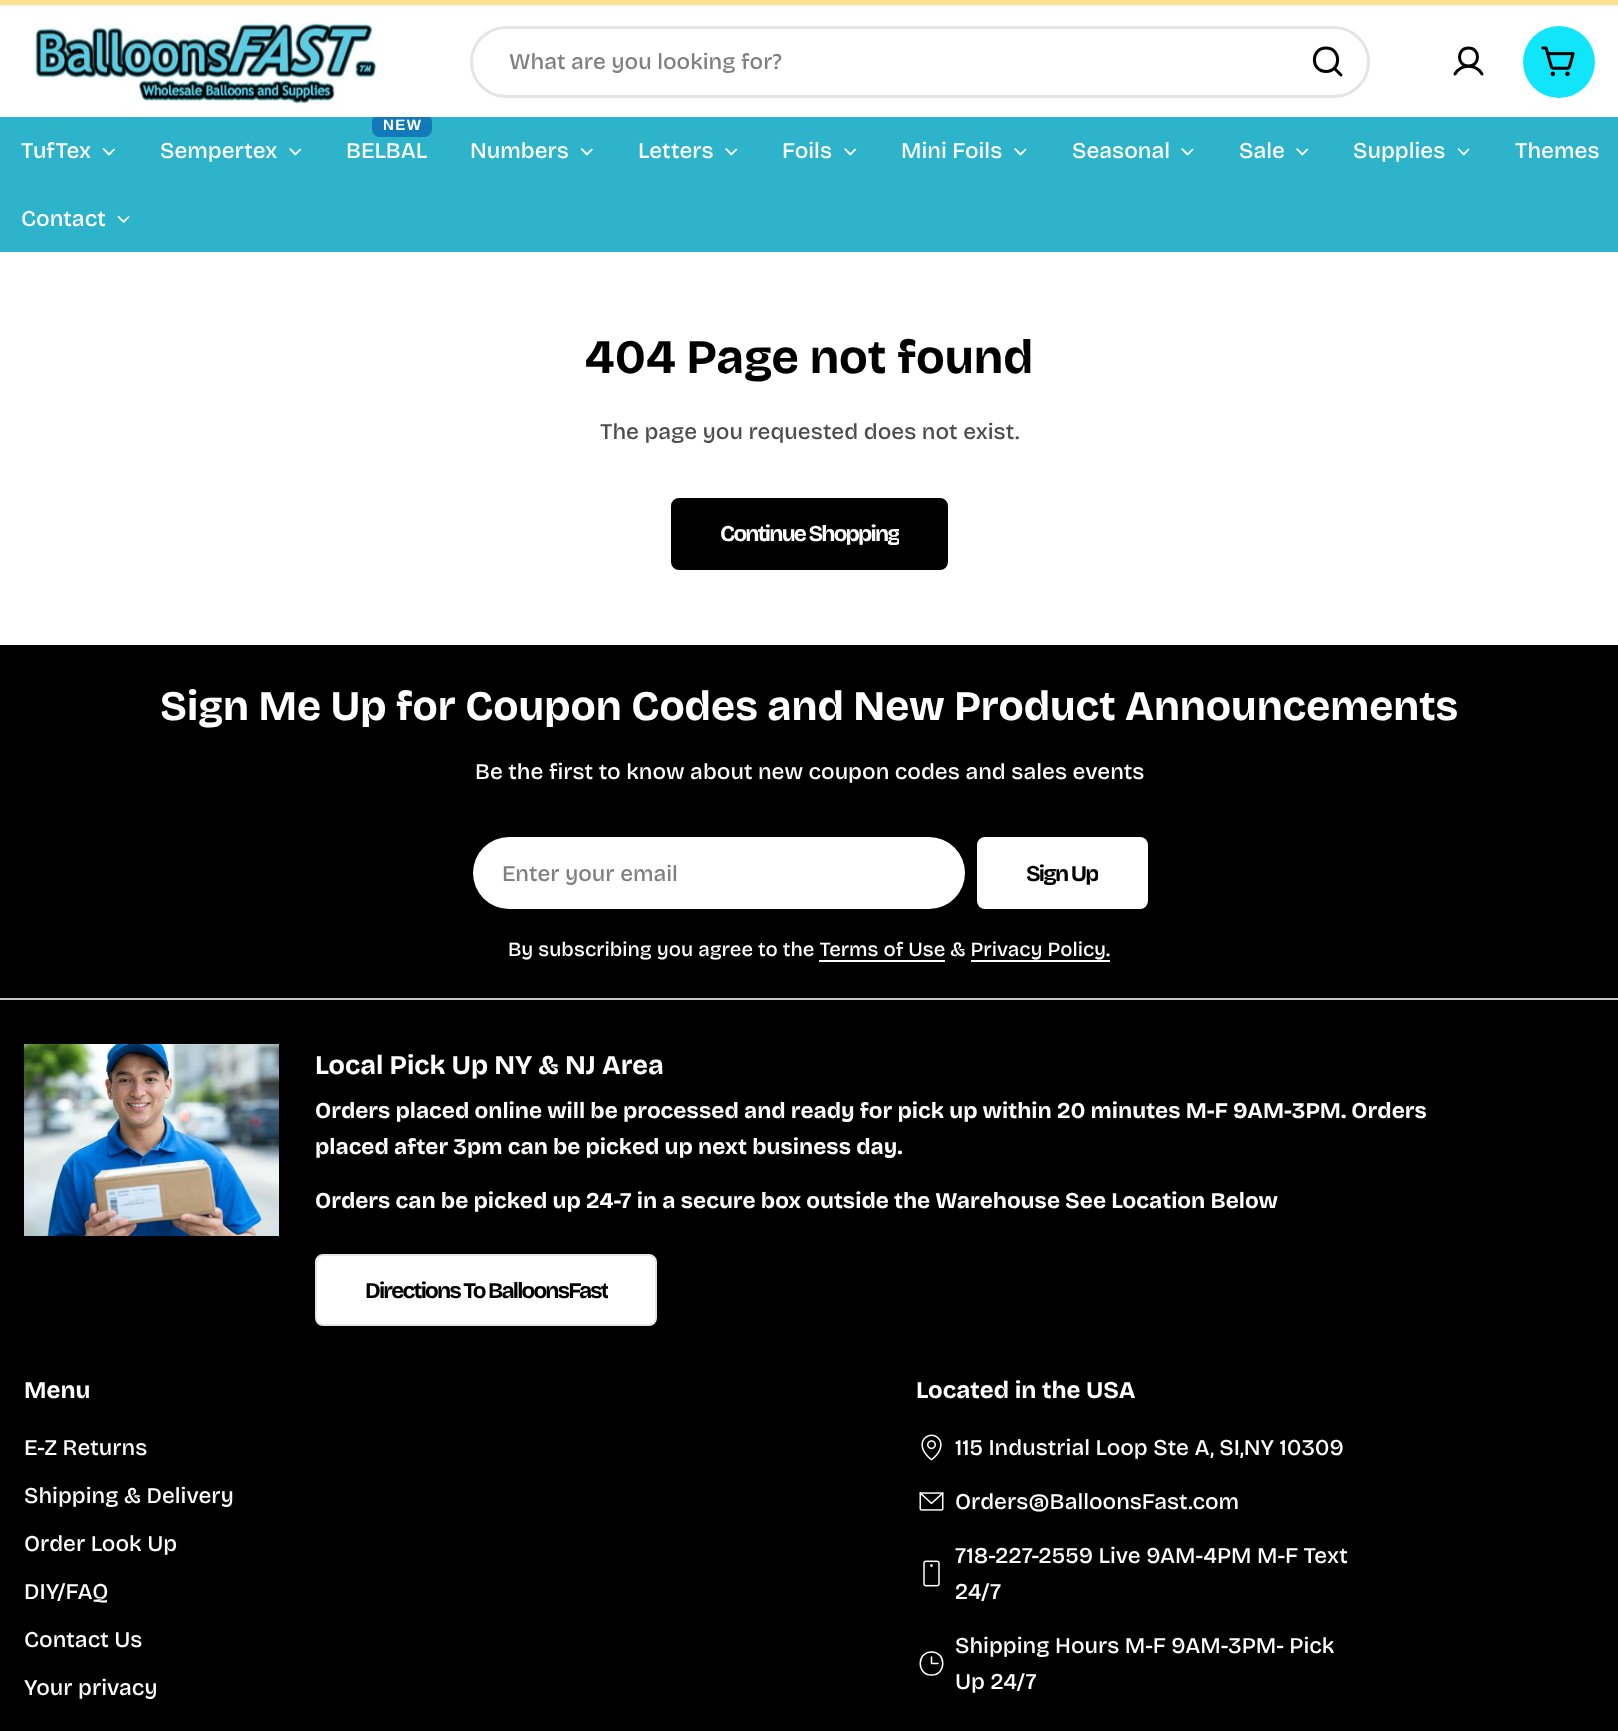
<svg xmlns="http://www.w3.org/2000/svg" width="1618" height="1731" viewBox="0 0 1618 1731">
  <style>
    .t1 { font: 500 22.5px Bricolage Grotesque; fill: #808080; }
    .t2 { font: 500 22.5px Bricolage Grotesque; fill: #fff; }
    .t3 { font: bold 15px Liberation Sans; letter-spacing: 1.5px; fill: #fff; }
    .t4 { font: bold 48px Bricolage Grotesque; fill: #000; }
    .t5 { font: 500 22.5px Bricolage Grotesque; fill: #4d4d4d; }
    .t6 { font: bold 22.5px 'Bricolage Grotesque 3'; letter-spacing: -1.8px; fill: #fff; }
    .t7 { font: bold 42px 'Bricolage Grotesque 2'; fill: #fff; }
    .t8 { font: bold 22.5px 'Bricolage Grotesque 3'; letter-spacing: -1.8px; fill: #000; }
    .t9 { font: 500 20.25px 'Bricolage Grotesque 2'; fill: #fff; }
    .t10 { font: bold 27px 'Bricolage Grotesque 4'; fill: #fff; }
    .t11 { font: bold 22.5px 'Bricolage Grotesque 3'; fill: #fff; }
    .t12 { font: bold 24px 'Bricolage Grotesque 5'; fill: #fff; }
  </style>
  <defs>
    <clipPath id="clip1"><rect x="720" y="512" width="179" height="45"/></clipPath>
    <clipPath id="clip2"><rect x="1026" y="851" width="72" height="45"/></clipPath>
    <clipPath id="clip3"><rect x="365" y="1268" width="243" height="45"/></clipPath>
  </defs>
  <rect width="100%" height="100%" fill="#fff"/>
  <rect x="0" y="0" width="1618" height="5" fill="#ffe093"/>
  <rect x="0" y="5" width="1618" height="2" fill="#f7f7f7"/>
  <rect x="0" y="117" width="1618" height="135" fill="#2db4cb"/>
  <rect x="372" y="114" width="60" height="23" rx="8" fill="#127ab8"/>
  <rect x="373" y="114" width="58" height="3" fill="#fff"/>
  <image x="33" y="21" width="344" height="88" href="images/1.png"/>
  <rect x="471.5" y="27.5" width="897" height="69" rx="34.5" fill="none" stroke="#e5e5e5" stroke-width="3"/>
  <text x="509" y="69" class="t1">What are you looking for?</text>
  <path d="M1326 71.5C1341.5 71.5 1341.5 48 1326 48C1310.5 48 1310.5 71.5 1326 71.5ZM1334 68L1341 75" fill="none" stroke="#000" stroke-width="3" stroke-linecap="round" stroke-linejoin="round"/>
  <path d="M1468.5 66C1480.5 66 1480.5 48 1468.5 48C1456.5 48 1456.5 66 1468.5 66ZM1455 74C1461 63.5 1476 63.5 1482 74" fill="none" stroke="#000" stroke-width="3" stroke-linecap="round" stroke-linejoin="round"/>
  <circle cx="1559" cy="62" r="36" fill="#11e5fa"/>
  <image x="1541" y="46" width="34" height="31" href="images/2.png"/>
  <text x="21" y="158" class="t2">TufTex</text>
  <path d="M114 148.5L115 149.5L109.5 155.5L108 154Z" fill="#fff"/>
  <path d="M104 148L110 154L108.5 155.5L102.5 149Z" fill="#fff"/>
  <text x="160" y="158" class="t2">Sempertex</text>
  <path d="M300 148.5L301.5 149.5L295.5 155.5L294.5 154Z" fill="#fff"/>
  <path d="M290.5 148L296.5 154L295 155.5L289 149Z" fill="#fff"/>
  <text x="383" y="130" class="t3">NEW</text>
  <text x="346" y="158" class="t2">BELBAL</text>
  <text x="470" y="158" class="t2">Numbers</text>
  <path d="M591.5 148.5L593 149.5L587 155.5L586 154Z" fill="#fff"/>
  <path d="M582 148L588 154L586.5 155.5L580.5 149Z" fill="#fff"/>
  <text x="638" y="158" class="t2">Letters</text>
  <path d="M736 148.5L737.5 149.5L731.5 155.5L730.5 154Z" fill="#fff"/>
  <path d="M726.5 148L732.5 154L731 155.5L725 149Z" fill="#fff"/>
  <text x="782" y="158" class="t2">Foils</text>
  <path d="M855 148.5L856.5 149.5L850.5 155.5L849.5 154Z" fill="#fff"/>
  <path d="M845 148L851.5 154L850 155.5L844 149Z" fill="#fff"/>
  <text x="901" y="158" class="t2">Mini Foils</text>
  <path d="M1025.5 148.5L1026.5 149.5L1021 155.5L1019.5 154Z" fill="#fff"/>
  <path d="M1015.5 148L1021.5 154L1020 155.5L1014 149Z" fill="#fff"/>
  <text x="1072" y="158" class="t2">Seasonal</text>
  <path d="M1192.5 148.5L1193.5 149.5L1188 155.5L1186.5 154Z" fill="#fff"/>
  <path d="M1182.5 148L1188.5 154L1187 155.5L1181 149Z" fill="#fff"/>
  <text x="1239" y="158" class="t2">Sale</text>
  <path d="M1307 148.5L1308.5 149.5L1302.5 155.5L1301.5 154Z" fill="#fff"/>
  <path d="M1297 148L1303.5 154L1302 155.5L1296 149Z" fill="#fff"/>
  <text x="1353" y="158" class="t2">Supplies</text>
  <path d="M1468.5 148.5L1469.5 149.5L1464 155.5L1462.5 154Z" fill="#fff"/>
  <path d="M1458.5 148L1464.5 154L1463.5 155.5L1457.5 149Z" fill="#fff"/>
  <text x="1515" y="158" class="t2">Themes</text>
  <text x="21" y="226" class="t2">Contact</text>
  <path d="M128.5 216L129.5 217L124 223L122.5 221.5Z" fill="#fff"/>
  <path d="M118.5 215.5L124.5 221.5L123.5 223L117.5 217Z" fill="#fff"/>
  <text x="585" y="373" class="t4">404 Page not found</text>
  <text x="600" y="439" class="t5">The page you requested does not exist.</text>
  <rect x="672" y="499" width="275" height="70" rx="7" fill="#000" stroke="#000" stroke-width="2"/>
  <g clip-path="url(#clip1)">
    <text x="720" y="541" class="t6">Continue Shopping</text>
  </g>
  <rect x="0" y="645" width="1618" height="353" fill="#000"/>
  <text x="160" y="720" class="t7">Sign Me Up for Coupon Codes and New Product Announcements</text>
  <text x="475" y="779" class="t2">Be the first to know about new coupon codes and sales events</text>
  <rect x="473" y="837" width="492" height="72" rx="36" fill="#fff"/>
  <text x="502" y="881" class="t1">Enter your email</text>
  <rect x="978" y="838" width="169" height="70" rx="7" fill="#fff" stroke="#fff" stroke-width="2"/>
  <g clip-path="url(#clip2)">
    <text x="1026" y="881" class="t8">Sign Up</text>
  </g>
  <text x="508" y="956" class="t9">By subscribing you agree to the Terms of Use &amp; Privacy Policy.</text>
  <rect x="819" y="960" width="126" height="2" fill="#fff"/>
  <rect x="971" y="960" width="139" height="2" fill="#fff"/>
  <rect x="0" y="1000" width="1618" height="731" fill="#000"/>
  <rect x="0" y="998" width="1618" height="2" fill="#c4c4c4"/>
  <image x="24" y="1044" width="255" height="192" href="images/3.png"/>
  <text x="315" y="1074" class="t10">Local Pick Up NY &amp; NJ Area</text>
  <text x="315" y="1118" class="t11">Orders placed online will be processed and ready for pick up within 20 minutes M-F 9AM-3PM. Orders</text>
  <text x="315" y="1154" class="t11">placed after 3pm can be picked up next business day.</text>
  <text x="315" y="1208" class="t11">Orders can be picked up 24-7 in a secure box outside the Warehouse See Location Below</text>
  <rect x="316" y="1255" width="340" height="70" rx="7" fill="#fff" stroke="#e6e6e6" stroke-width="2"/>
  <g clip-path="url(#clip3)">
    <text x="365" y="1298" class="t8">Directions To BalloonsFast</text>
  </g>
  <text x="24" y="1398" class="t12">Menu</text>
  <text x="24" y="1455" class="t2">E-Z Returns</text>
  <text x="24" y="1503" class="t2">Shipping &amp; Delivery</text>
  <text x="24" y="1551" class="t2">Order Look Up</text>
  <text x="24" y="1599" class="t2">DIY/FAQ</text>
  <text x="24" y="1647" class="t2">Contact Us</text>
  <text x="24" y="1695" class="t2">Your privacy</text>
  <text x="916" y="1398" class="t12">Located in the USA</text>
  <image x="921" y="1434" width="21" height="27" href="images/4.png"/>
  <text x="955" y="1455" class="t2">115 Industrial Loop Ste A, SI,NY 10309</text>
  <image x="919" y="1492" width="25" height="19" href="images/5.png"/>
  <text x="955" y="1509" class="t2">Orders@BalloonsFast.com</text>
  <image x="923" y="1560" width="17" height="27" href="images/6.png"/>
  <text x="955" y="1563" class="t2">718-227-2559 Live 9AM-4PM M-F Text</text>
  <text x="955" y="1599" class="t2">24/7</text>
  <path d="M931.5 1675C946.5 1675 946.5 1652 931.5 1652C916.5 1652 916.5 1675 931.5 1675ZM931.5 1657V1663.5H938" fill="none" stroke="#fff" stroke-width="1.5" stroke-linecap="round" stroke-linejoin="round"/>
  <text x="955" y="1653" class="t2">Shipping Hours M-F 9AM-3PM- Pick</text>
  <text x="955" y="1689" class="t2">Up 24/7</text>
</svg>
